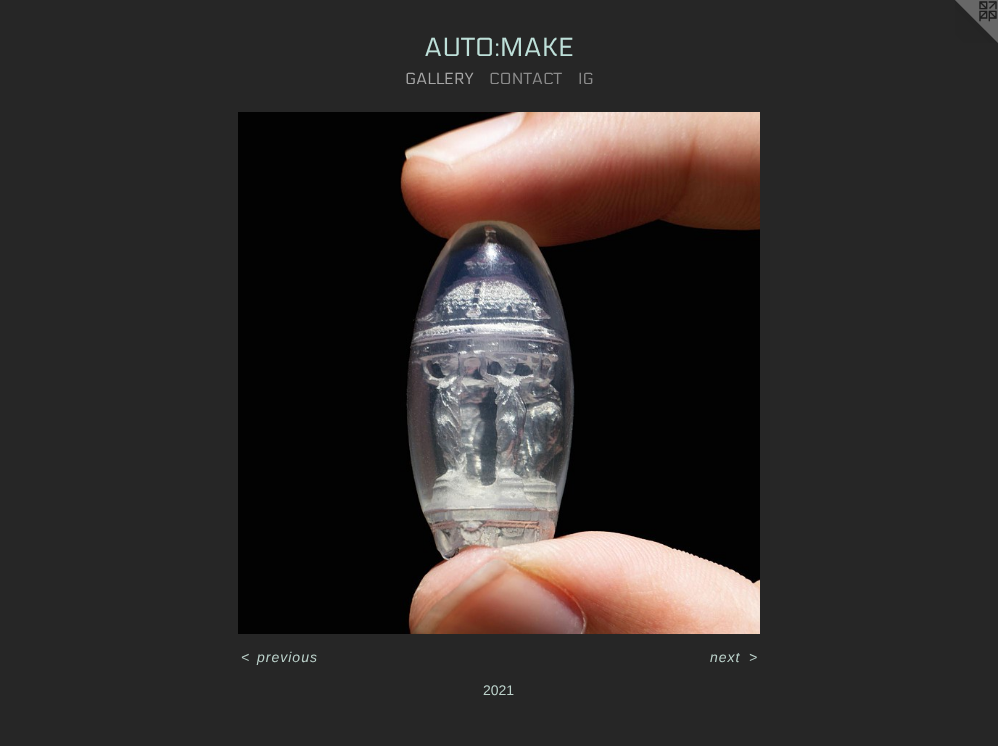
<svg xmlns="http://www.w3.org/2000/svg" width="998" height="746" viewBox="0 0 998 746">
  <style>
    .t1 { font: 26px Electrolize; fill: #bee0d9; }
    .t2 { font: 16px Electrolize; fill: #a6a6a6; }
    .t3 { font: 16px Electrolize; fill: #8c8c8c; }
    .t4 { font: italic 14px Liberation Sans; letter-spacing: 1px; fill: #bcd2cb; }
    .t5 { font: 14px Liberation Sans; fill: #bcd2cb; }
  </style>
  <rect width="100%" height="100%" fill="#262626"/>
  <image x="955" y="0" width="43" height="43" href="images/1.png"/>
  <text x="424" y="56" class="t1">AUTO:MAKE</text>
  <text x="405" y="84" class="t2">GALLERY</text>
  <text x="489" y="84" class="t3">CONTACT</text>
  <text x="578" y="84" class="t3">IG</text>
  <image x="238" y="112" width="522" height="522" href="images/2.png"/>
  <text x="241" y="662" class="t4">&lt;</text>
  <text x="257" y="662" class="t4">previous</text>
  <text x="710" y="662" class="t4">next</text>
  <text x="749" y="662" class="t4">&gt;</text>
  <text x="483" y="695" class="t5">2021</text>
</svg>
